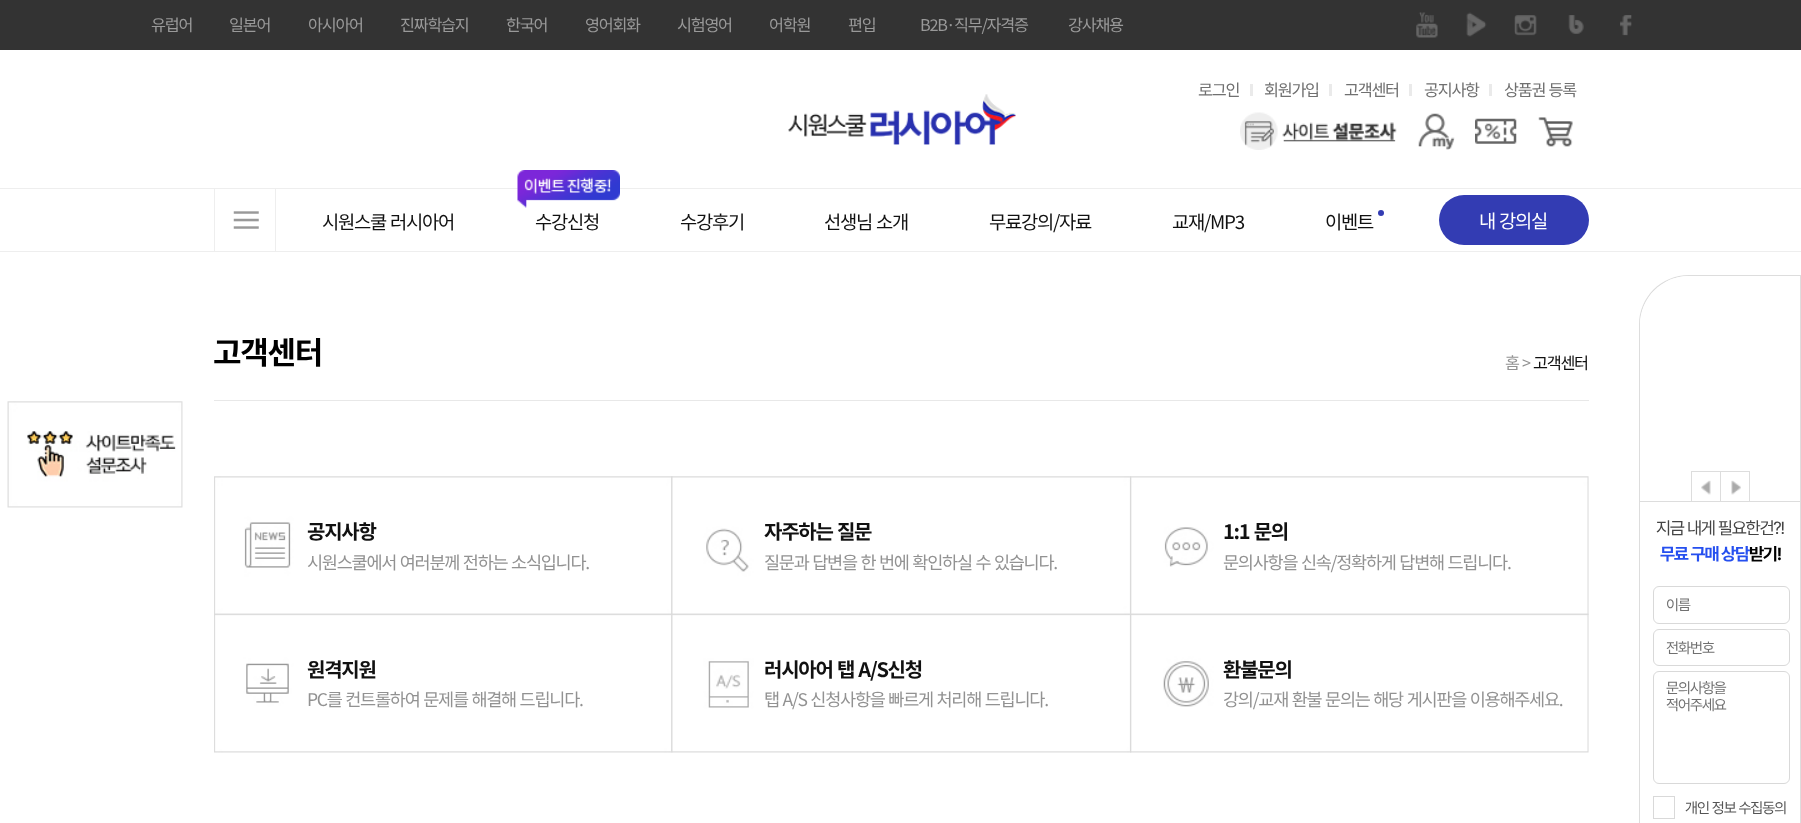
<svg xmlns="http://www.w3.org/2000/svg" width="1801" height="823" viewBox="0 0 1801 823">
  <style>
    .t1 { font: 16.25px Noto Sans KR; letter-spacing: -1.25px; fill: #999; }
    .t2 { font: 16.25px Noto Sans KR; letter-spacing: -1.25px; fill: #707070; }
    .t3 { font: 18.75px Noto Sans KR; letter-spacing: -1.25px; fill: #111; }
    .t4 { font: 18.75px Noto Sans KR; letter-spacing: -1.25px; fill: #fff; }
    .t5 { font: bold 31px Noto Sans KR; letter-spacing: -1.25px; fill: #000; }
    .t6 { font: 16.25px Noto Sans KR; letter-spacing: -1.25px; fill: #929292; }
    .t7 { font: 16.25px Noto Sans KR; letter-spacing: -1.25px; fill: #111; }
    .t8 { font: bold 20px Noto Sans KR; letter-spacing: -1.25px; fill: #111; }
    .t9 { font: 17.5px Noto Sans KR; letter-spacing: -1.25px; fill: #929292; }
    .t10 { font: 17.5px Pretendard; letter-spacing: -1.25px; fill: #444; }
    .t11 { font: bold 17.5px Pretendard; letter-spacing: -1.25px; fill: #254fef; }
    .t12 { font: bold 17.5px Pretendard; letter-spacing: -1.25px; fill: #000; }
    .t13 { font: 15px Pretendard; letter-spacing: -1px; fill: #707070; }
    .t14 { font: 15px Pretendard; letter-spacing: -1px; fill: #555; }
  </style>
  <rect width="100%" height="100%" fill="#fff"/>
  <rect x="0" y="0" width="1801" height="50" fill="#333"/>
  <text x="151" y="31" class="t1">유럽어</text>
  <text x="229" y="31" class="t1">일본어</text>
  <text x="308" y="31" class="t1">아시아어</text>
  <text x="400" y="31" class="t1">진짜학습지</text>
  <text x="506" y="31" class="t1">한국어</text>
  <text x="585" y="31" class="t1">영어회화</text>
  <text x="677" y="31" class="t1">시험영어</text>
  <text x="769" y="31" class="t1">어학원</text>
  <text x="848" y="31" class="t1">편입</text>
  <text x="920" y="31" class="t1">B2B·직무/자격증</text>
  <text x="1068" y="31" class="t1">강사채용</text>
  <image x="1416" y="12" width="22" height="26" href="images/1.png"/>
  <image x="1466" y="12" width="21" height="25" href="images/2.png"/>
  <image x="1514" y="15" width="23" height="21" href="images/3.png"/>
  <image x="1568" y="15" width="16" height="19" href="images/4.png"/>
  <image x="1620" y="15" width="12" height="21" href="images/5.png"/>
  <text x="1198" y="96" class="t2">로그인</text>
  <rect x="1250" y="84" width="3" height="12" fill="#eaeaea"/>
  <text x="1264" y="96" class="t2">회원가입</text>
  <rect x="1329" y="84" width="3" height="12" fill="#eaeaea"/>
  <text x="1344" y="96" class="t2">고객센터</text>
  <rect x="1409" y="84" width="3" height="12" fill="#eaeaea"/>
  <text x="1424" y="96" class="t2">공지사항</text>
  <rect x="1489" y="84" width="3" height="12" fill="#eaeaea"/>
  <text x="1504" y="96" word-spacing="1" class="t2">상품권 등록</text>
  <image x="788" y="94" width="228" height="51" href="images/6.png"/>
  <image x="1240" y="112" width="157" height="38" href="images/7.png"/>
  <image x="1418" y="113" width="37" height="37" href="images/8.png"/>
  <image x="1475" y="118" width="42" height="26" href="images/9.png"/>
  <image x="1538" y="117" width="35" height="30" href="images/10.png"/>
  <rect x="0" y="188" width="1801" height="1" fill="#eee"/>
  <rect x="0" y="251" width="1801" height="1" fill="#eee"/>
  <image x="233" y="211" width="26" height="18" href="images/11.png"/>
  <rect x="275" y="189" width="1" height="62" fill="#eee"/>
  <rect x="214" y="189" width="1" height="62" fill="#eee"/>
  <text x="322" y="229" word-spacing="1" class="t3">시원스쿨 러시아어</text>
  <image x="517" y="170" width="103" height="38" href="images/12.png"/>
  <text x="535" y="229" class="t3">수강신청</text>
  <text x="680" y="229" class="t3">수강후기</text>
  <text x="824" y="229" word-spacing="1" class="t3">선생님 소개</text>
  <text x="989" y="229" class="t3">무료강의/자료</text>
  <text x="1172" y="229" class="t3">교재/MP3</text>
  <text x="1325" y="229" class="t3">이벤트</text>
  <circle cx="1381" cy="213" r="3" fill="#333cb3"/>
  <rect x="1439" y="195" width="150" height="50" rx="25" fill="#333cb3"/>
  <text x="1479" y="228" word-spacing="1" class="t4">내 강의실</text>
  <rect x="214" y="400" width="1375" height="1" fill="#e8e8e8"/>
  <text x="213" y="364" class="t5">고객센터</text>
  <text x="1505" y="369" class="t6">홈</text>
  <text x="1522" y="369" class="t6">&gt;</text>
  <text x="1533" y="369" class="t7">고객센터</text>
  <image x="7" y="401" width="176" height="107" href="images/13.png"/>
  <image x="214" y="476" width="459" height="138" href="images/14.png"/>
  <text x="307" y="539" class="t8">공지사항</text>
  <text x="307" y="569" word-spacing="1" class="t9">시원스쿨에서 여러분께 전하는 소식입니다.</text>
  <image x="671" y="476" width="461" height="138" href="images/15.png"/>
  <text x="764" y="539" word-spacing="1" class="t8">자주하는 질문</text>
  <text x="764" y="569" word-spacing="1" class="t9">질문과 답변을 한 번에 확인하실 수 있습니다.</text>
  <image x="1130" y="476" width="459" height="139" href="images/16.png"/>
  <text x="1223" y="539" word-spacing="1" class="t8">1:1 문의</text>
  <text x="1223" y="569" word-spacing="1" class="t9">문의사항을 신속/정확하게 답변해 드립니다.</text>
  <image x="214" y="613" width="459" height="140" href="images/17.png"/>
  <text x="307" y="677" class="t8">원격지원</text>
  <text x="307" y="706" word-spacing="1" class="t9">PC를 컨트롤하여 문제를 해결해 드립니다.</text>
  <image x="671" y="613" width="461" height="140" href="images/18.png"/>
  <text x="764" y="677" word-spacing="1" class="t8">러시아어 탭 A/S신청</text>
  <text x="764" y="706" word-spacing="1" class="t9">탭 A/S 신청사항을 빠르게 처리해 드립니다.</text>
  <image x="1130" y="613" width="459" height="140" href="images/19.png"/>
  <text x="1223" y="677" class="t8">환불문의</text>
  <text x="1223" y="706" word-spacing="1" class="t9">강의/교재 환불 문의는 해당 게시판을 이용해주세요.</text>
  <path d="M1689 275H1801V501H1639V325C1639 297 1661 275 1689 275ZM1689 276H1800V501H1640V325C1640 298 1662 276 1689 276Z" fill="#ddd" fill-rule="evenodd"/>
  <path d="M1689 276H1800V501H1640V325C1640 298 1662 276 1689 276Z" fill="#fff"/>
  <image x="1701" y="480" width="10" height="15" href="images/20.png"/>
  <rect x="1691" y="471" width="30" height="1" fill="#ddd"/>
  <rect x="1720" y="471" width="1" height="30" fill="#ddd"/>
  <rect x="1691" y="471" width="1" height="30" fill="#ddd"/>
  <image x="1731" y="480" width="10" height="15" href="images/21.png"/>
  <rect x="1720" y="471" width="30" height="1" fill="#ddd"/>
  <rect x="1749" y="471" width="1" height="30" fill="#ddd"/>
  <rect x="1639" y="501" width="162" height="1" fill="#ddd"/>
  <rect x="1800" y="501" width="1" height="322" fill="#ddd"/>
  <rect x="1639" y="501" width="1" height="322" fill="#ddd"/>
  <text x="1656" y="534" class="t10">지금 내게 필요한건?!</text>
  <text x="1660" y="560" class="t11">무료 구매 상담</text>
  <text x="1749" y="560" class="t12">받기!</text>
  <rect x="1653.5" y="586.5" width="136" height="37" rx="5.5" fill="none" stroke="#d9d9d9"/>
  <text x="1666" y="610" class="t13">이름</text>
  <rect x="1653.5" y="629.5" width="136" height="36" rx="5.5" fill="none" stroke="#d9d9d9"/>
  <text x="1666" y="653" class="t13">전화번호</text>
  <rect x="1653.5" y="671.5" width="136" height="112" rx="5.5" fill="none" stroke="#d9d9d9"/>
  <text x="1666" y="693" class="t13">문의사항을</text>
  <text x="1666" y="710" class="t13">적어주세요</text>
  <rect x="1653.5" y="796.5" width="21" height="22" fill="none" stroke="#d9d9d9"/>
  <text x="1685" y="813" class="t14">개인 정보 수집동의</text>
</svg>
